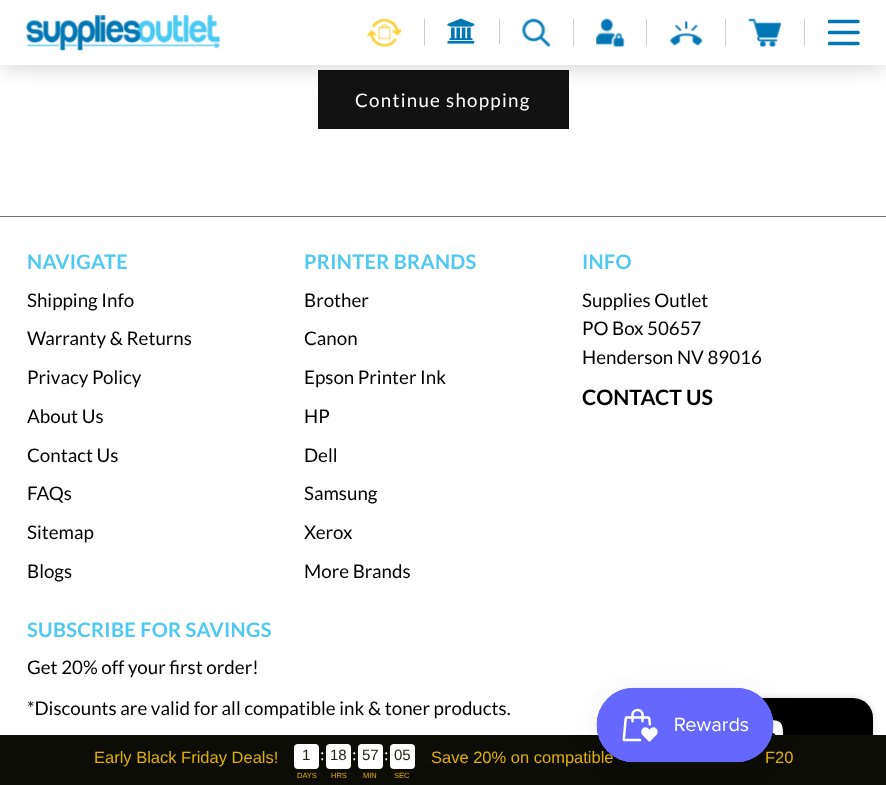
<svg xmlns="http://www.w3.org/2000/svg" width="886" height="785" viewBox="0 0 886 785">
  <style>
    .t1 { font: 18.75px Lato; letter-spacing: 1.25px; fill: #fff; }
    .t2 { font: bold 20px Lato; letter-spacing: 0.3px; fill: #4fc9f1; }
    .t3 { font: 18.75px Lato; fill: #000; }
    .t4 { font: bold 21.25px Lato; fill: #000; }
    .t5 { font: 16.5px Liberation Sans; fill: #e2b000; }
    .t6 { font: 15px Liberation Sans; fill: #232312; }
    .t7 { font: 16.5px Liberation Serif; fill: #fff; }
    .t8 { font: 7.5px Liberation Sans; fill: #e2b000; }
  </style>
  <defs>
    <clipPath id="clip1"><rect x="828" y="19" width="32" height="27"/></clipPath>
  </defs>
  <rect width="100%" height="100%" fill="#fff"/>
  <rect x="318" y="70" width="251" height="59" fill="#121212"/>
  <rect x="0" y="0" width="886" height="65" fill="#00000033" filter="blur(12.5px)"/>
  <rect x="0" y="0" width="886" height="65" fill="#fff"/>
  <image x="26" y="15" width="195" height="36" href="images/1.png"/>
  <rect x="424" y="19" width="1" height="27" fill="#ccc"/>
  <image x="367" y="18" width="35" height="30" href="images/2.png"/>
  <rect x="499" y="19" width="1" height="25" fill="#ccc"/>
  <image x="447" y="18" width="28" height="26" href="images/3.png"/>
  <rect x="573" y="19" width="1" height="27" fill="#ccc"/>
  <image x="522" y="18" width="29" height="30" href="images/4.png"/>
  <rect x="646" y="19" width="1" height="27" fill="#ccc"/>
  <image x="596" y="18" width="29" height="30" href="images/5.png"/>
  <rect x="725" y="19" width="1" height="27" fill="#ccc"/>
  <image x="669" y="20" width="35" height="27" href="images/6.png"/>
  <rect x="804" y="19" width="1" height="27" fill="#ccc"/>
  <image x="748" y="18" width="33" height="30" href="images/7.png"/>
  <g clip-path="url(#clip1)">
    <path d="M829.5 43.5H858M829.5 32.5H858M829.5 21.5H858" fill="none" stroke="#0277b4" stroke-width="3.6" stroke-linecap="round"/>
  </g>
  <text x="355" y="107" class="t1">Continue shopping</text>
  <rect x="0" y="216" width="886" height="1" fill="#707070"/>
  <text x="27" y="269" class="t2">NAVIGATE</text>
  <text x="27" y="307" class="t3">Shipping Info</text>
  <text x="27" y="345" class="t3">Warranty &amp; Returns</text>
  <text x="27" y="384" class="t3">Privacy Policy</text>
  <text x="27" y="423" class="t3">About Us</text>
  <text x="27" y="462" class="t3">Contact Us</text>
  <text x="27" y="500" class="t3">FAQs</text>
  <text x="27" y="539" class="t3">Sitemap</text>
  <text x="27" y="578" class="t3">Blogs</text>
  <text x="304" y="269" class="t2">PRINTER BRANDS</text>
  <text x="304" y="307" class="t3">Brother</text>
  <text x="304" y="345" class="t3">Canon</text>
  <text x="304" y="384" class="t3">Epson Printer Ink</text>
  <text x="304" y="423" class="t3">HP</text>
  <text x="304" y="462" class="t3">Dell</text>
  <text x="304" y="500" class="t3">Samsung</text>
  <text x="304" y="539" class="t3">Xerox</text>
  <text x="304" y="578" class="t3">More Brands</text>
  <text x="582" y="269" class="t2">INFO</text>
  <text x="582" y="307" class="t3">Supplies Outlet</text>
  <text x="582" y="335" class="t3">PO Box 50657</text>
  <text x="582" y="364" class="t3">Henderson NV 89016</text>
  <text x="582" y="405" class="t4">CONTACT US</text>
  <text x="27" y="637" class="t2">SUBSCRIBE FOR SAVINGS</text>
  <text x="27" y="674" class="t3">Get 20% off your first order!</text>
  <text x="27" y="715" class="t3">*Discounts are valid for all compatible ink &amp; toner products.</text>
  <rect x="731" y="698" width="142" height="75" rx="20" fill="#00000026" filter="blur(3px)"/>
  <rect x="731" y="698" width="142" height="75" rx="20" fill="#000"/>
  <rect x="0" y="735" width="886" height="50" fill="#0d0d07"/>
  <image x="772" y="720" width="11" height="15" href="images/9.png"/>
  <rect x="596" y="688" width="178" height="75" rx="37.5" fill="#0000000d" filter="blur(15.5px)"/>
  <text x="431" y="763" class="t5">Save 20% on compatible</text>
  <text x="765" y="763" class="t5">F20</text>
  <image x="596" y="687" width="178" height="76" href="images/8.png"/>
  <text x="94" y="763" class="t5">Early Black Friday Deals!</text>
  <rect x="294" y="744" width="25" height="25" rx="4" fill="#fff"/>
  <text x="302" y="760" class="t6">1</text>
  <text x="320" y="760" class="t7">:</text>
  <rect x="326" y="744" width="25" height="25" rx="4" fill="#fff"/>
  <text x="330" y="760" class="t6">18</text>
  <text x="352" y="760" class="t7">:</text>
  <rect x="358" y="744" width="25" height="25" rx="4" fill="#fff"/>
  <text x="362" y="760" class="t6">57</text>
  <text x="384" y="760" class="t7">:</text>
  <rect x="390" y="744" width="25" height="25" rx="4" fill="#fff"/>
  <text x="394" y="760" class="t6">05</text>
  <text x="297" y="778" class="t8">DAYS</text>
  <text x="331" y="778" class="t8">HRS</text>
  <text x="363" y="778" class="t8">MIN</text>
  <text x="394" y="778" class="t8">SEC</text>
</svg>
